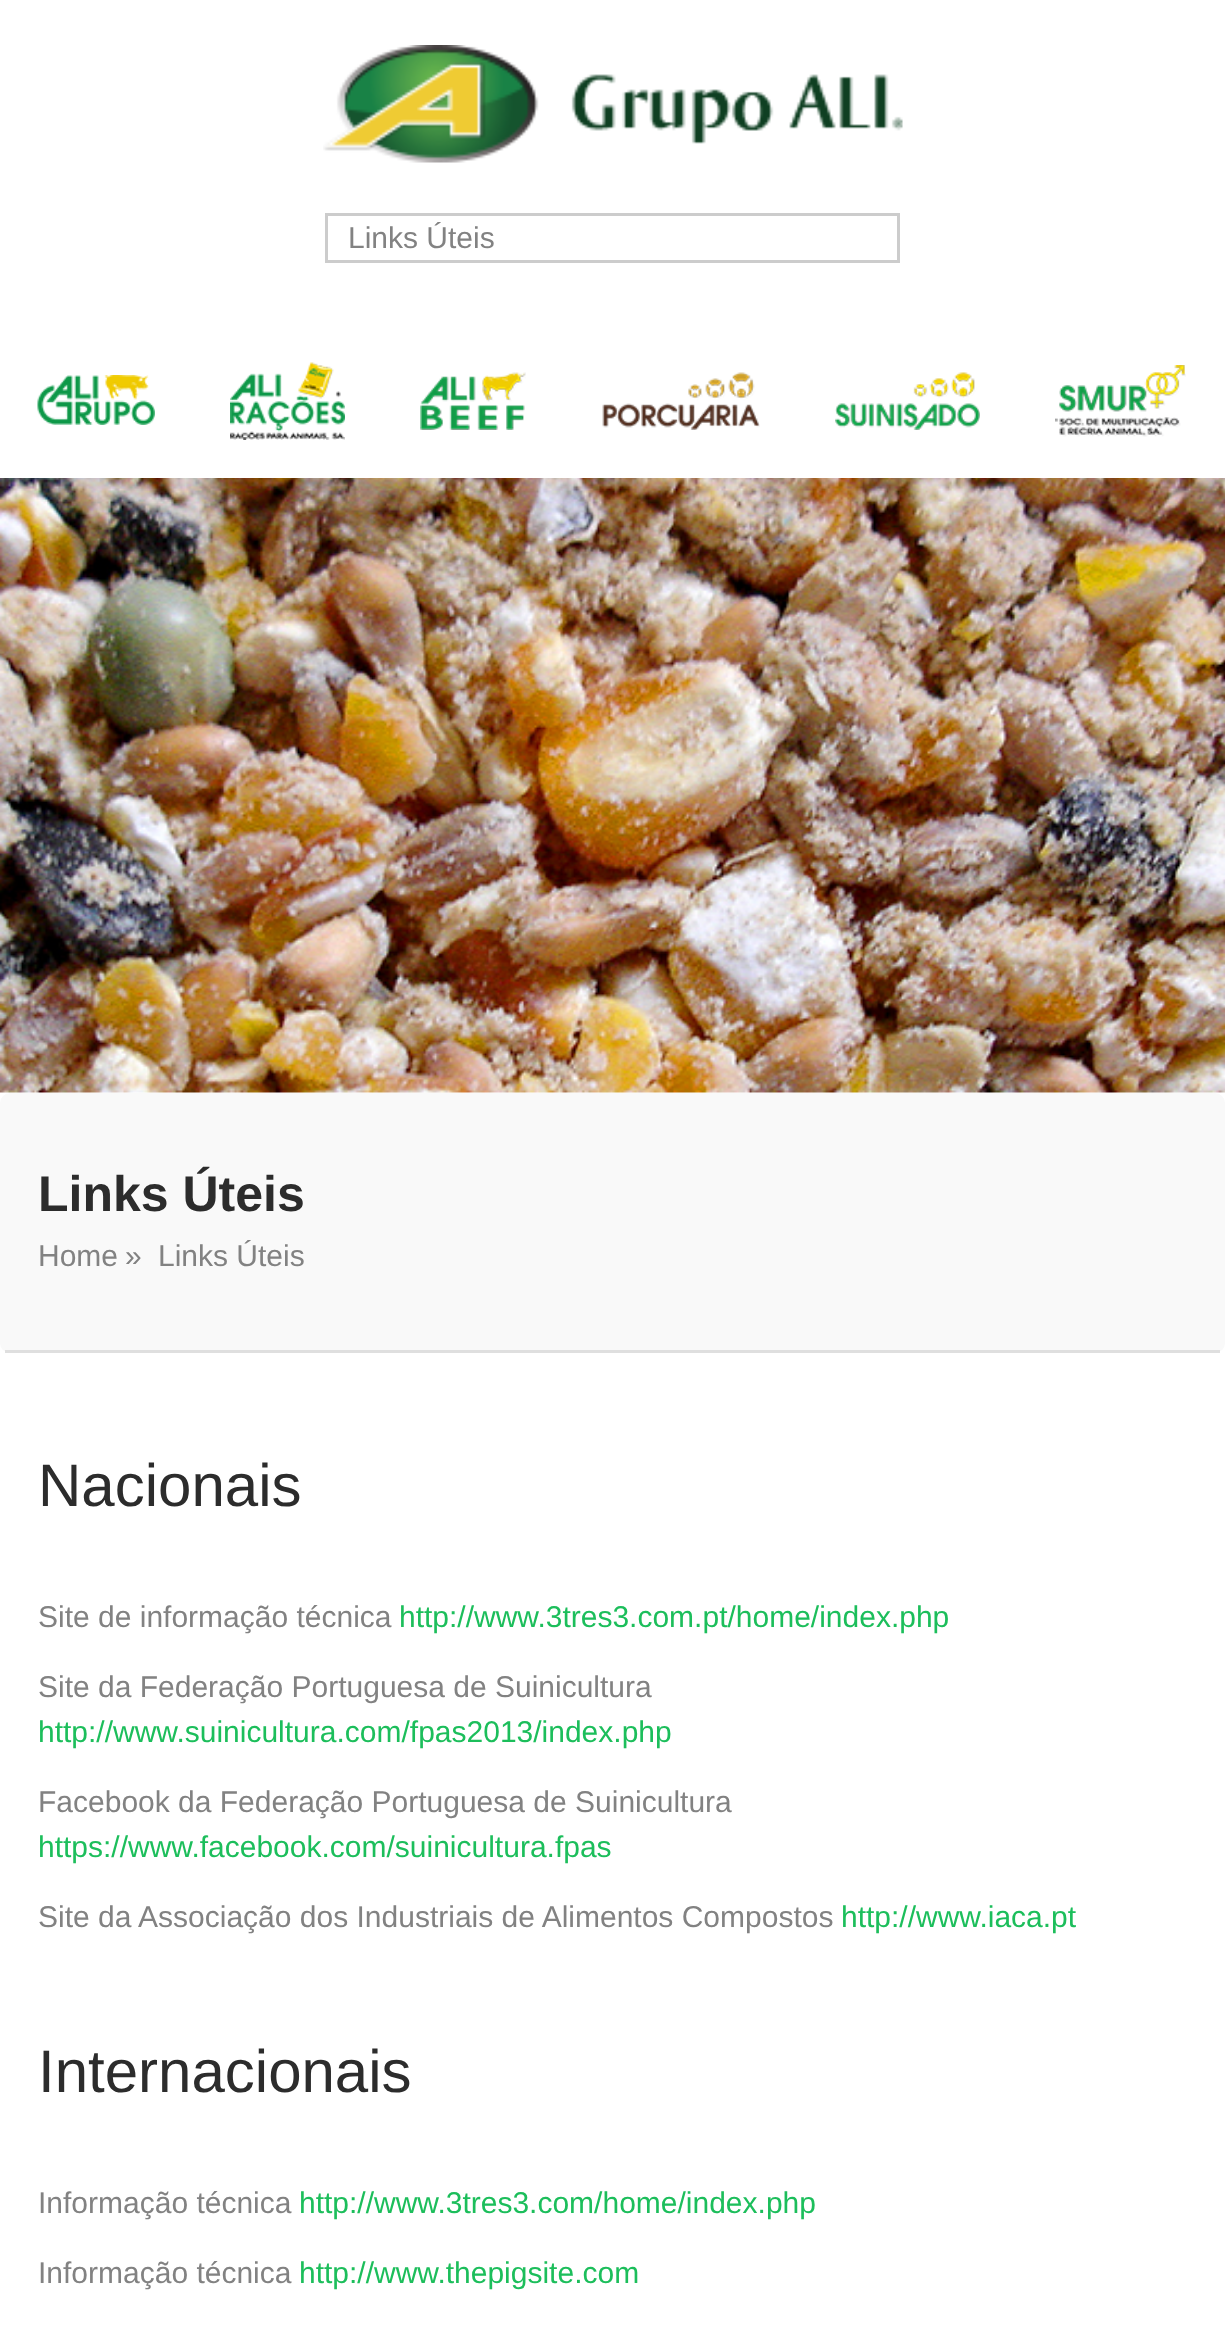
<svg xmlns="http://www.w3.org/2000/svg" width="1225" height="2344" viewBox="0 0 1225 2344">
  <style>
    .t1 { font: 30px Liberation Sans; fill: #828282; }
    .t2 { font: bold 50px Liberation Sans; fill: #2c2c2c; }
    .t3 { font: 60px Liberation Sans; fill: #2c2c2c; }
    .t4 { font: 30px Liberation Sans; fill: #1cbe5b; }
  </style>
  <rect width="100%" height="100%" fill="#fff"/>
  <image x="323" y="45" width="580" height="118" href="images/1.png"/>
  <rect x="326.5" y="214.5" width="572" height="47" fill="none" stroke="#ccc" stroke-width="3"/>
  <text x="348" y="248" class="t1">Links Úteis</text>
  <image x="37" y="375" width="118" height="50" href="images/2.png"/>
  <image x="230" y="362" width="115" height="78" href="images/3.png"/>
  <image x="420" y="372" width="106" height="58" href="images/4.png"/>
  <image x="602" y="372" width="158" height="58" href="images/5.png"/>
  <image x="835" y="372" width="145" height="58" href="images/6.png"/>
  <image x="1055" y="365" width="131" height="72" href="images/7.png"/>
  <image x="0" y="478" width="1225" height="615" href="images/8.png"/>
  <rect x="0" y="1093" width="1225" height="260" rx="10" fill="#f9f9f9"/>
  <rect x="5" y="1350" width="1215" height="3" fill="#dfdfdf"/>
  <text x="38" y="1211" class="t2">Links Úteis</text>
  <text x="38" y="1266" class="t1">Home</text>
  <text x="125" y="1266" class="t1">»</text>
  <text x="158" y="1266" class="t1">Links Úteis</text>
  <text x="38" y="1506" class="t3">Nacionais</text>
  <text x="38" y="1627" class="t1">Site de informação técnica</text>
  <text x="399" y="1627" class="t4">http://www.3tres3.com.pt/home/index.php</text>
  <text x="38" y="1697" class="t1">Site da Federação Portuguesa de Suinicultura</text>
  <text x="38" y="1742" class="t4">http://www.suinicultura.com/fpas2013/index.php</text>
  <text x="38" y="1812" class="t1">Facebook da Federação Portuguesa de Suinicultura</text>
  <text x="38" y="1857" class="t4">https://www.facebook.com/suinicultura.fpas</text>
  <text x="38" y="1927" class="t1">Site da Associação dos Industriais de Alimentos Compostos</text>
  <text x="841" y="1927" class="t4">http://www.iaca.pt</text>
  <text x="38" y="2092" class="t3">Internacionais</text>
  <text x="38" y="2213" class="t1">Informação técnica</text>
  <text x="299" y="2213" class="t4">http://www.3tres3.com/home/index.php</text>
  <text x="38" y="2283" class="t1">Informação técnica</text>
  <text x="299" y="2283" class="t4">http://www.thepigsite.com</text>
</svg>
